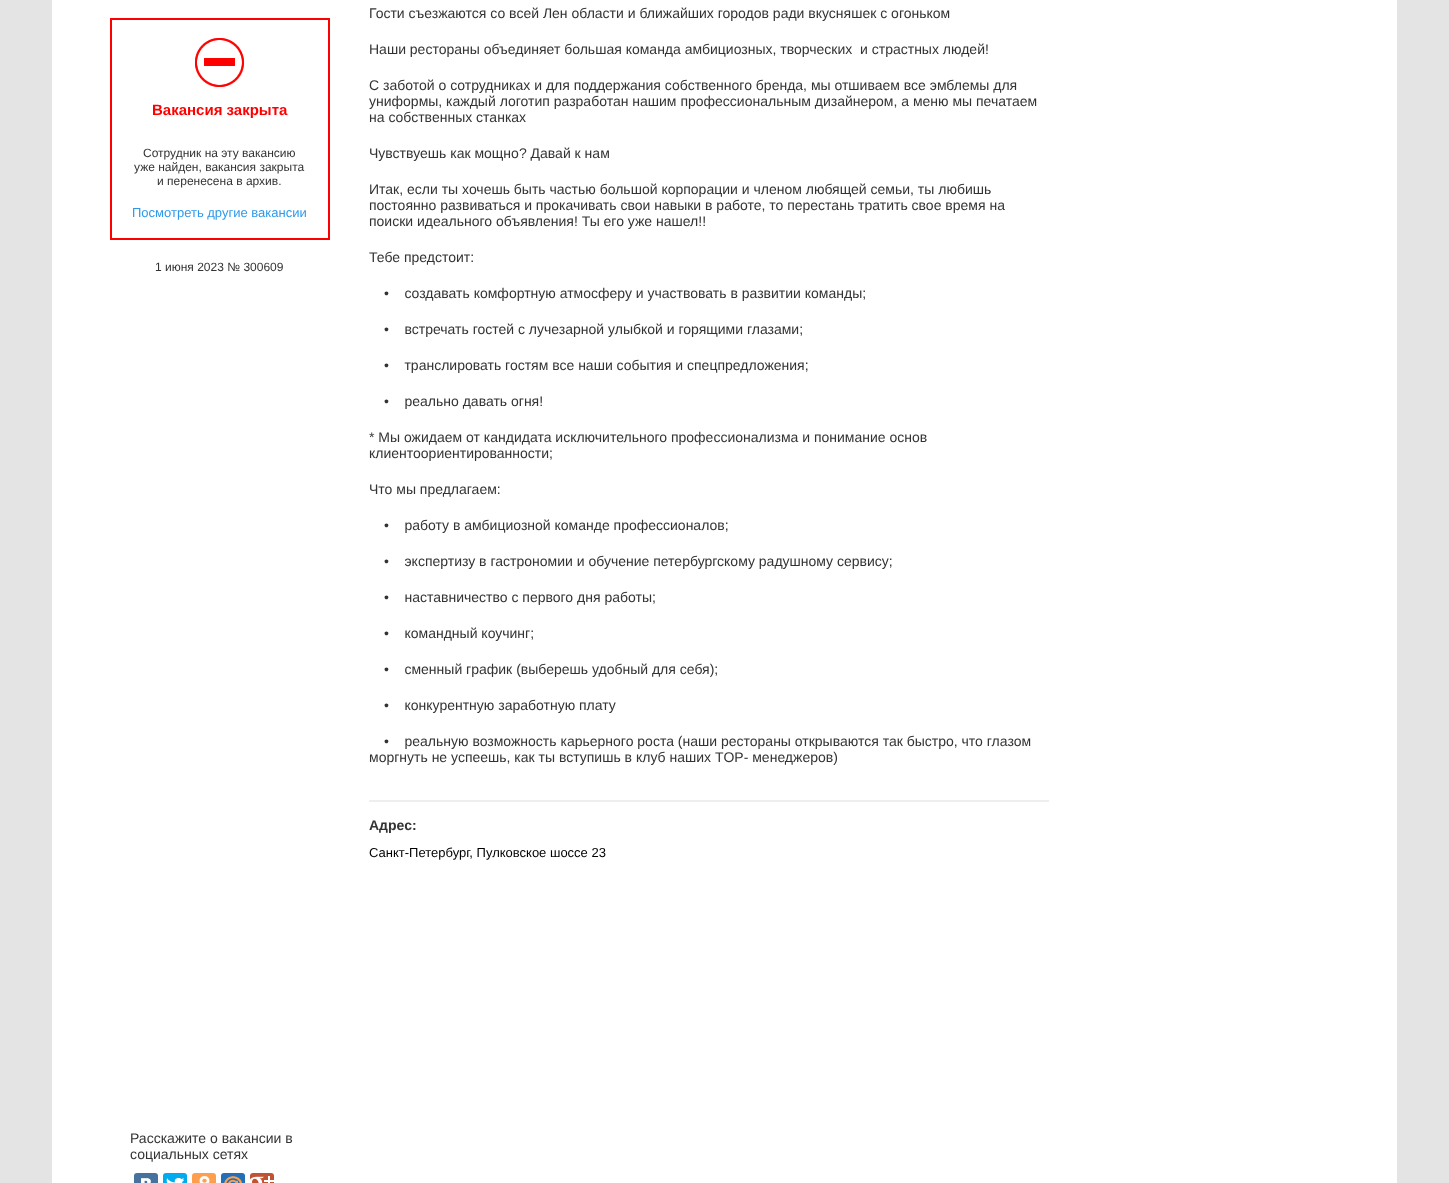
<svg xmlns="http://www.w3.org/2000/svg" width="1449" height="1183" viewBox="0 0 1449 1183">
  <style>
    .t1 { font: bold 15px Liberation Sans; fill: #f00; }
    .t2 { font: 12px Liberation Sans; fill: #333; }
    .t3 { font: 13px Liberation Sans; fill: #2e99eb; }
    .t4 { font: 14px Liberation Sans; fill: #333; }
    .t5 { font: bold 14px Liberation Sans; fill: #333; }
    .t6 { font: 13px Liberation Sans; fill: #000; }
  </style>
  <rect width="100%" height="100%" fill="#e4e4e4"/>
  <rect x="52" y="0" width="1345" height="1183" fill="#fff"/>
  <image x="195" y="38" width="49" height="49" href="images/1.png"/>
  <rect x="111" y="19" width="218" height="220" fill="none" stroke="#f00" stroke-width="2"/>
  <text x="152" y="115" class="t1">Вакансия закрыта</text>
  <text x="143" y="157" class="t2">Сотрудник на эту вакансию</text>
  <text x="134" y="171" class="t2">уже найден, вакансия закрыта</text>
  <text x="157" y="185" class="t2">и перенесена в архив.</text>
  <text x="132" y="217" class="t3">Посмотреть другие вакансии</text>
  <text x="155" y="271" class="t2">1 июня 2023 № 300609</text>
  <rect x="369" y="800" width="680" height="2" fill="#eee"/>
  <text x="369" y="18" class="t4">Гости съезжаются со всей Лен области и ближайших городов ради вкусняшек с огоньком</text>
  <text x="369" y="54" class="t4" xml:space="preserve">Наши рестораны объединяет большая команда амбициозных, творческих  и страстных людей!</text>
  <text x="369" y="90" class="t4">С заботой о сотрудниках и для поддержания собственного бренда, мы отшиваем все эмблемы для</text>
  <text x="369" y="106" class="t4">униформы, каждый логотип разработан нашим профессиональным дизайнером, а меню мы печатаем</text>
  <text x="369" y="122" class="t4">на собственных станках</text>
  <text x="369" y="158" class="t4">Чувствуешь как мощно? Давай к нам</text>
  <text x="369" y="194" class="t4">Итак, если ты хочешь быть частью большой корпорации и членом любящей семьи, ты любишь</text>
  <text x="369" y="210" class="t4">постоянно развиваться и прокачивать свои навыки в работе, то перестань тратить свое время на</text>
  <text x="369" y="226" class="t4">поиски идеального объявления! Ты его уже нашел!!</text>
  <text x="369" y="262" class="t4">Тебе предстоит:</text>
  <text x="384" y="298" class="t4" xml:space="preserve">•    создавать комфортную атмосферу и участвовать в развитии команды;</text>
  <text x="384" y="334" class="t4" xml:space="preserve">•    встречать гостей с лучезарной улыбкой и горящими глазами;</text>
  <text x="384" y="370" class="t4" xml:space="preserve">•    транслировать гостям все наши события и спецпредложения;</text>
  <text x="384" y="406" class="t4" xml:space="preserve">•    реально давать огня!</text>
  <text x="369" y="442" class="t4">* Мы ожидаем от кандидата исключительного профессионализма и понимание основ</text>
  <text x="369" y="458" class="t4">клиентоориентированности;</text>
  <text x="369" y="494" class="t4">Что мы предлагаем:</text>
  <text x="384" y="530" class="t4" xml:space="preserve">•    работу в амбициозной команде профессионалов;</text>
  <text x="384" y="566" class="t4" xml:space="preserve">•    экспертизу в гастрономии и обучение петербургскому радушному сервису;</text>
  <text x="384" y="602" class="t4" xml:space="preserve">•    наставничество с первого дня работы;</text>
  <text x="384" y="638" class="t4" xml:space="preserve">•    командный коучинг;</text>
  <text x="384" y="674" class="t4" xml:space="preserve">•    сменный график (выберешь удобный для себя);</text>
  <text x="384" y="710" class="t4" xml:space="preserve">•    конкурентную заработную плату</text>
  <text x="384" y="746" class="t4" xml:space="preserve">•    реальную возможность карьерного роста (наши рестораны открываются так быстро, что глазом</text>
  <text x="369" y="762" class="t4">моргнуть не успеешь, как ты вступишь в клуб наших ТOP- менеджеров)</text>
  <text x="369" y="830" class="t5">Адрес:</text>
  <text x="369" y="857" class="t6">Санкт-Петербург, Пулковское шоссе 23</text>
  <text x="130" y="1143" class="t4">Расскажите о вакансии в</text>
  <text x="130" y="1159" class="t4">социальных сетях</text>
  <rect x="134" y="1173" width="24" height="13" rx="3" fill="#48729e"/>
  <image x="141" y="1178" width="10" height="5" href="images/2.png"/>
  <rect x="163" y="1173" width="24" height="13" rx="3" fill="#00aced"/>
  <image x="166" y="1178" width="18" height="5" href="images/3.png"/>
  <rect x="192" y="1173" width="24" height="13" rx="3" fill="#ff9f4d"/>
  <image x="199" y="1176" width="11" height="7" href="images/4.png"/>
  <rect x="221" y="1173" width="24" height="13" rx="3" fill="#226eb7"/>
  <image x="224" y="1176" width="18" height="7" href="images/5.png"/>
  <rect x="250" y="1173" width="24" height="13" rx="3" fill="#c25234"/>
  <image x="250" y="1176" width="24" height="7" href="images/6.png"/>
</svg>
